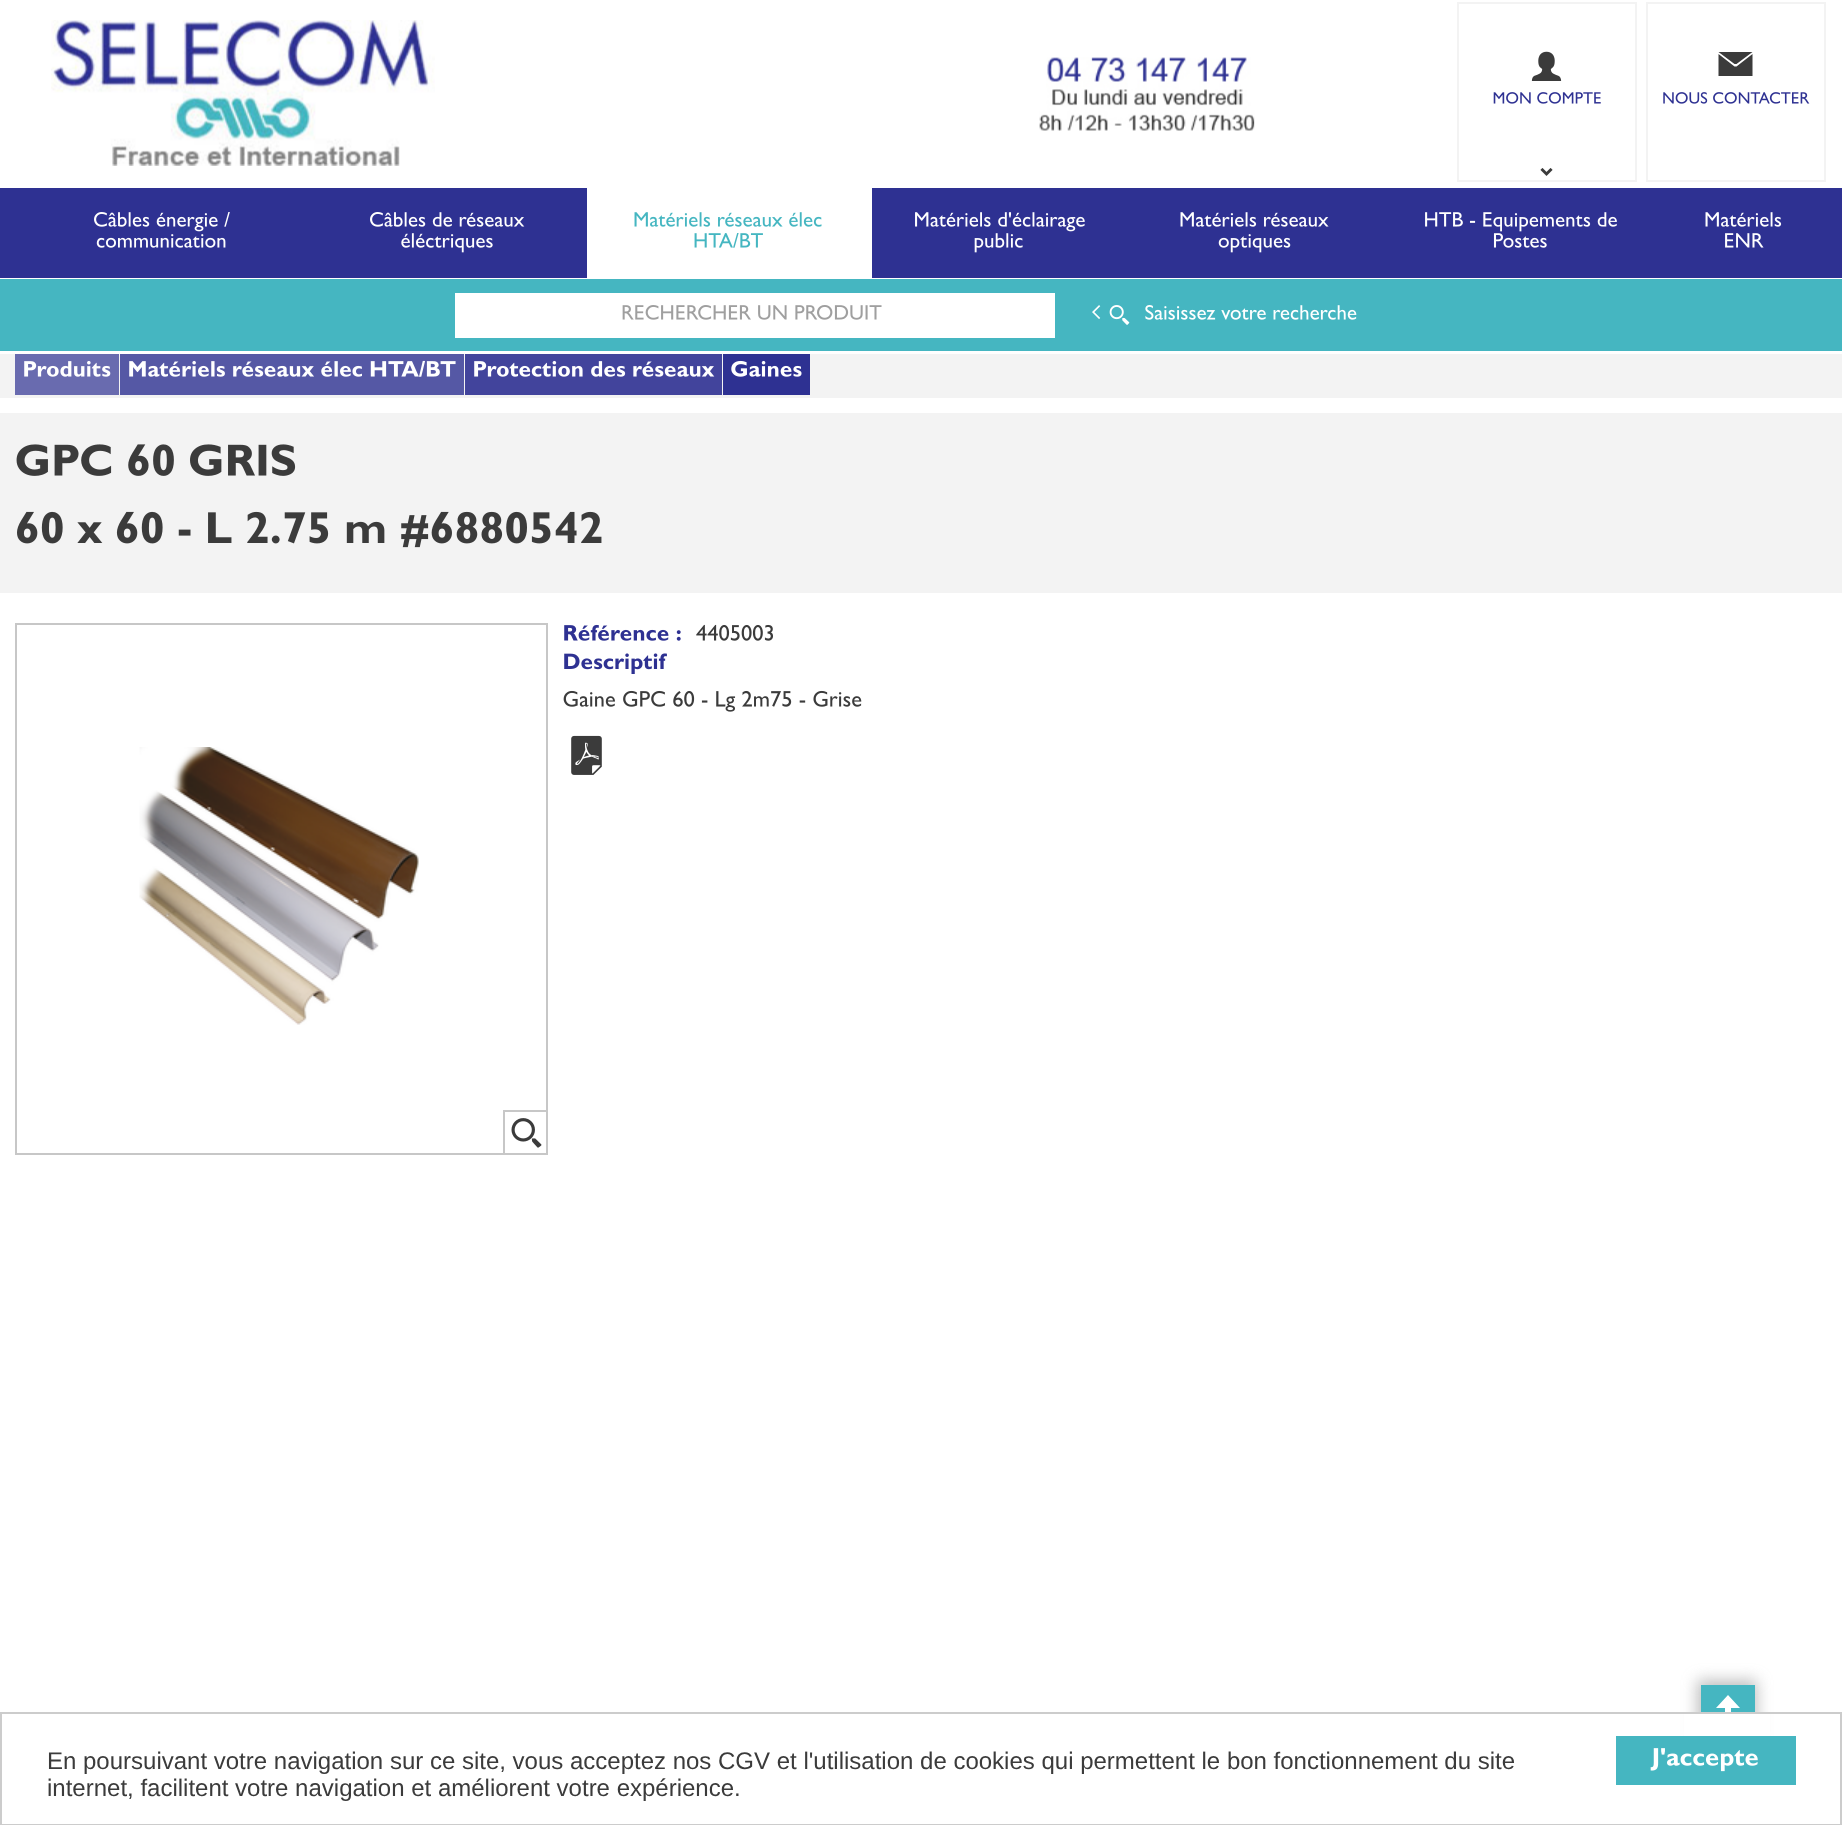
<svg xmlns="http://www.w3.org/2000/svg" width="1842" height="1825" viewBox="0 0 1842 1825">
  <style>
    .t1 { font: 24px Liberation Sans; fill: #3b3b3b; }
  </style>
  <rect width="100%" height="100%" fill="#fff"/>
  <image x="51" y="20" width="384" height="146" href="images/1.png"/>
  <image x="1039" y="57" width="216" height="74" href="images/2.png"/>
  <rect x="1458" y="3" width="178" height="178" fill="none" stroke="#f3f3f3" stroke-width="2"/>
  <image x="1531" y="51" width="31" height="30" href="images/3.png"/>
  <image x="1493" y="92" width="108" height="12" href="images/4.png"/>
  <image x="1540" y="168" width="13" height="8" href="images/5.png"/>
  <rect x="1647" y="3" width="178" height="178" fill="none" stroke="#f3f3f3" stroke-width="2"/>
  <path d="M1734.5 64L1718.5 52H1752.5L1736.5 64ZM1718.5 76V54L1734.5 66.5H1736.5L1752.5 54V76Z" fill="#3b3b3b"/>
  <image x="1663" y="92" width="147" height="12" href="images/6.png"/>
  <rect x="0" y="188" width="1842" height="90" fill="#2e3192"/>
  <image x="94" y="212" width="136" height="20" href="images/7.png"/>
  <image x="96" y="234" width="130" height="14" href="images/8.png"/>
  <image x="370" y="212" width="155" height="15" href="images/9.png"/>
  <image x="401" y="233" width="92" height="20" href="images/10.png"/>
  <rect x="587" y="188" width="285" height="90" fill="#fff"/>
  <image x="634" y="212" width="188" height="15" href="images/11.png"/>
  <image x="694" y="233" width="69" height="15" href="images/12.png"/>
  <image x="915" y="212" width="170" height="20" href="images/13.png"/>
  <image x="974" y="233" width="49" height="20" href="images/14.png"/>
  <image x="1180" y="212" width="149" height="15" href="images/15.png"/>
  <image x="1218" y="234" width="73" height="19" href="images/16.png"/>
  <image x="1425" y="212" width="192" height="20" href="images/17.png"/>
  <image x="1493" y="233" width="54" height="15" href="images/18.png"/>
  <image x="1705" y="212" width="77" height="15" href="images/19.png"/>
  <image x="1725" y="233" width="39" height="15" href="images/20.png"/>
  <rect x="0" y="279" width="1842" height="72" fill="#45b6c1"/>
  <rect x="455" y="293" width="600" height="45" fill="#fff"/>
  <image x="622" y="305" width="260" height="15" href="images/21.png"/>
  <image x="1092" y="305" width="38" height="20" href="images/22.png"/>
  <image x="1145" y="305" width="212" height="15" href="images/23.png"/>
  <rect x="0" y="354" width="1842" height="44" fill="#f3f3f3"/>
  <rect x="15" y="354" width="104" height="41" fill="#696baf"/>
  <image x="24" y="361" width="87" height="16" href="images/24.png"/>
  <rect x="120" y="354" width="344" height="41" fill="#5558a5"/>
  <image x="129" y="360" width="327" height="17" href="images/25.png"/>
  <rect x="465" y="354" width="257" height="41" fill="#42449c"/>
  <image x="474" y="360" width="241" height="17" href="images/26.png"/>
  <rect x="723" y="354" width="87" height="41" fill="#2e3192"/>
  <image x="731" y="360" width="71" height="17" href="images/27.png"/>
  <rect x="0" y="413" width="1842" height="180" fill="#f3f3f3"/>
  <image x="16" y="444" width="280" height="32" href="images/28.png"/>
  <image x="17" y="511" width="585" height="37" href="images/29.png"/>
  <rect x="16" y="624" width="531" height="530" fill="none" stroke="#c7c7c7" stroke-width="2"/>
  <image x="139" y="747" width="280" height="278" href="images/30.png"/>
  <rect x="503" y="1110" width="45" height="2" fill="#c7c7c7"/>
  <rect x="503" y="1110" width="2" height="45" fill="#c7c7c7"/>
  <image x="511" y="1118" width="31" height="30" href="images/31.png"/>
  <image x="564" y="624" width="117" height="17" href="images/32.png"/>
  <image x="696" y="624" width="77" height="17" href="images/33.png"/>
  <image x="564" y="653" width="103" height="21" href="images/34.png"/>
  <image x="563" y="690" width="299" height="22" href="images/35.png"/>
  <image x="571" y="735" width="31" height="40" href="images/36.png"/>
  <rect x="1697" y="1680" width="60" height="60" fill="#7f7f7f80" filter="blur(7.5px)"/>
  <rect x="1716" y="1695" width="24" height="17" fill="#fff"/>
  <path d="M1725 1708V1729H1731V1708H1740L1728 1695L1716 1708ZM1701 1685H1755V1739H1701Z" fill="#45b6c1"/>
  <rect x="1684" y="1714" width="86" height="39" fill="#fff"/>
  <rect x="1" y="1713" width="1840" height="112" fill="none" stroke="#ccc" stroke-width="2"/>
  <text x="47" y="1769" class="t1">En poursuivant votre navigation sur ce site, vous acceptez nos CGV et l'utilisation de cookies qui permettent le bon fonctionnement du site</text>
  <text x="47" y="1796" class="t1">internet, facilitent votre navigation et améliorent votre expérience.</text>
  <rect x="1616" y="1736" width="180" height="49" fill="#45b6c1"/>
  <image x="1650" y="1748" width="108" height="24" href="images/37.png"/>
</svg>
